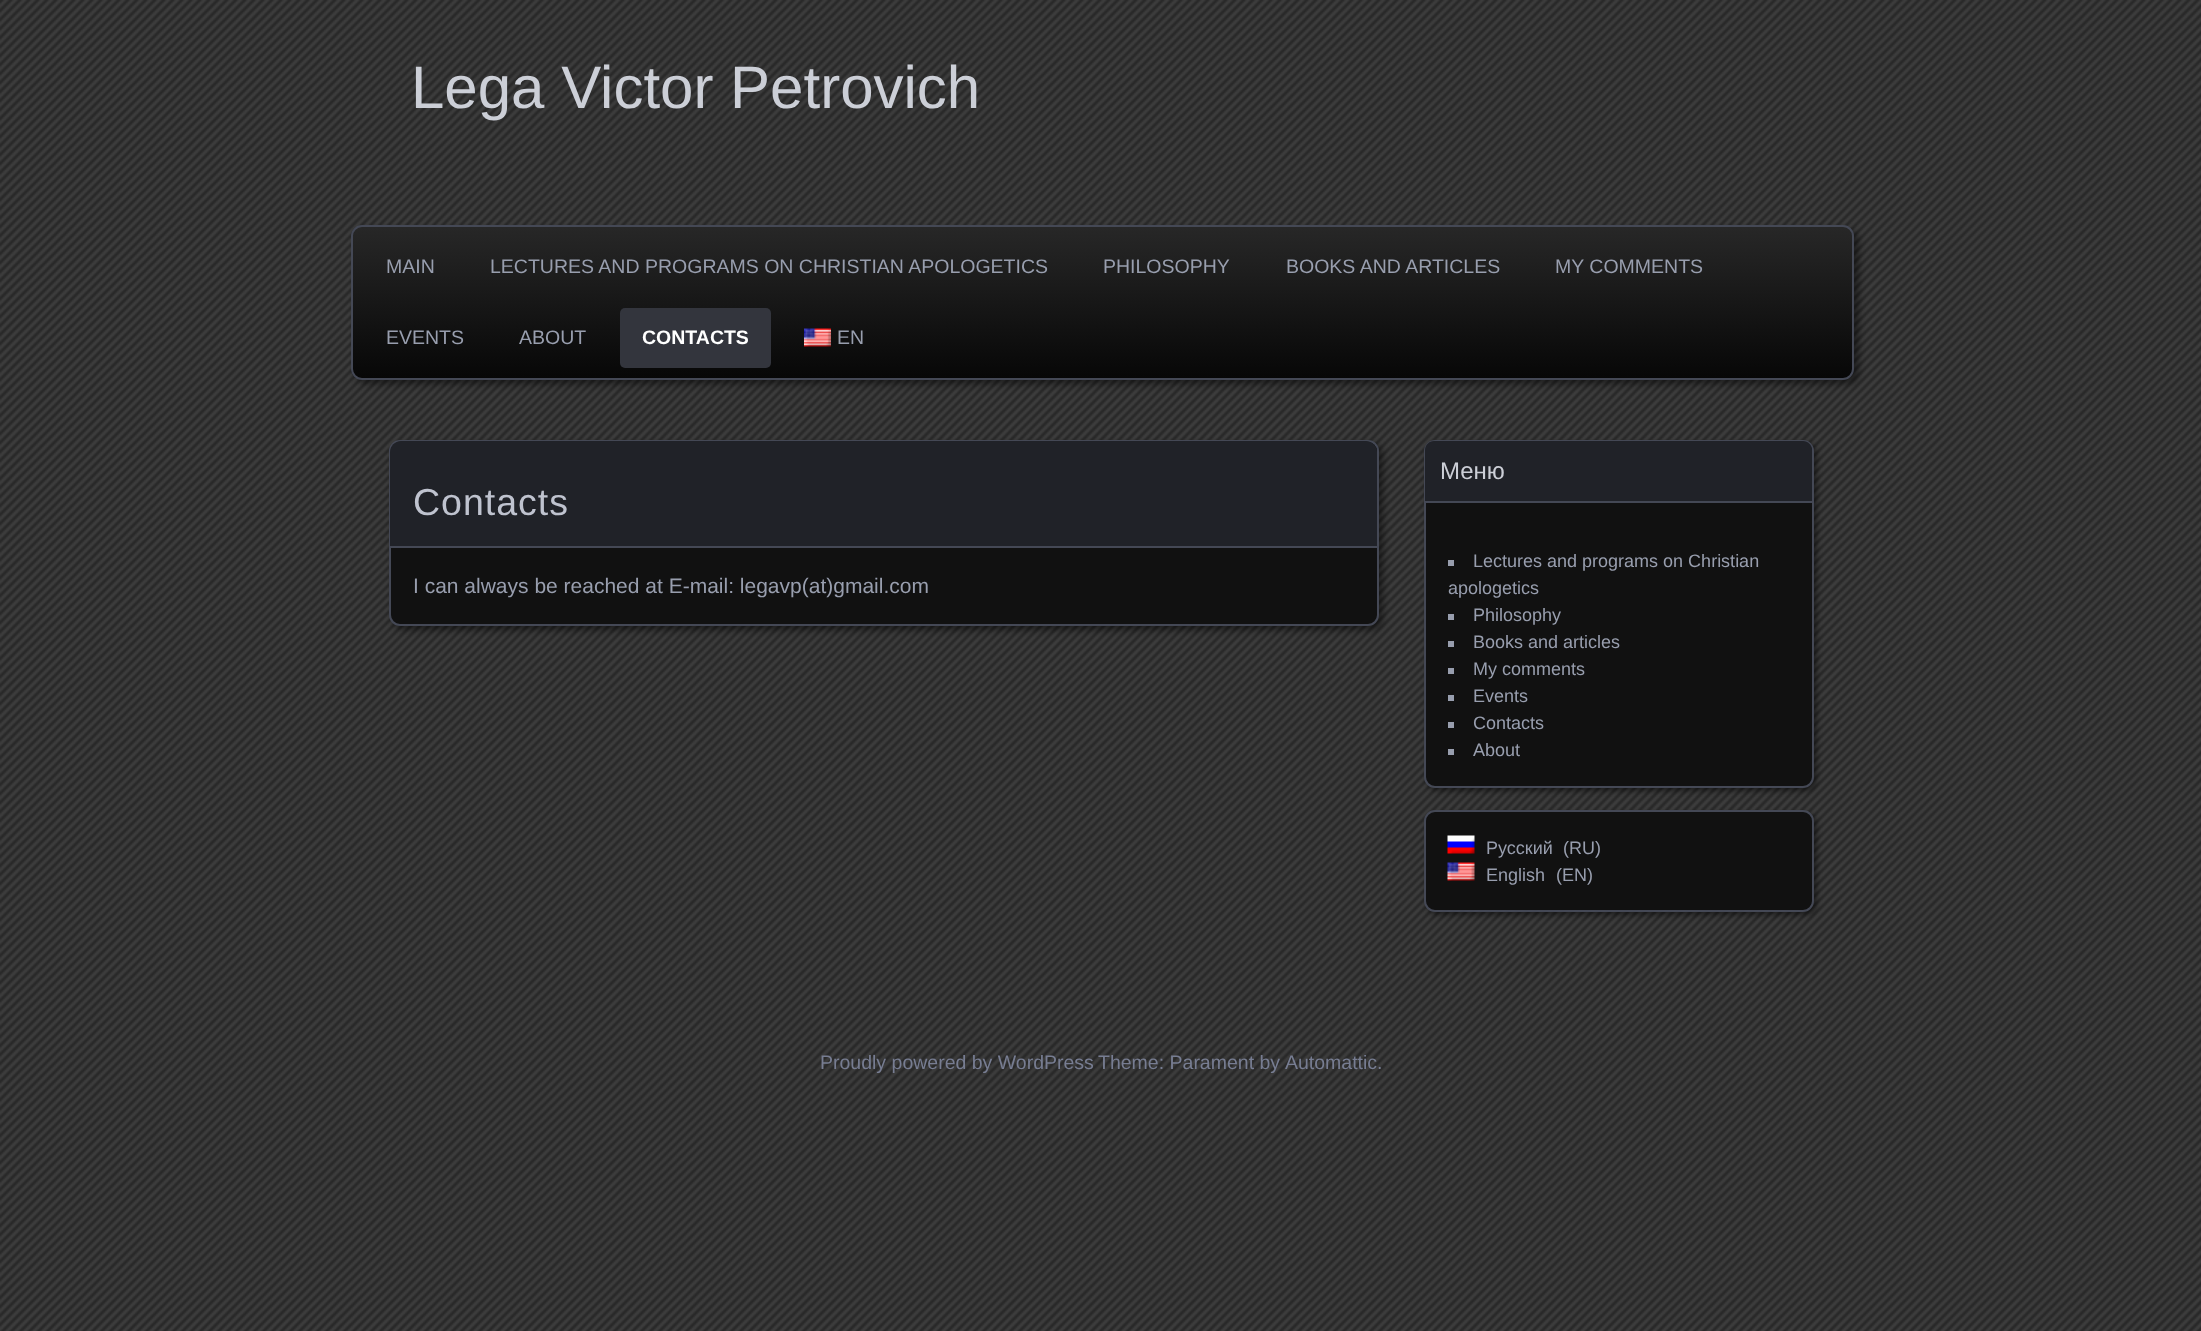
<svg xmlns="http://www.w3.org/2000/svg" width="2201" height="1331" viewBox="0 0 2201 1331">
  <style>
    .t1 { font: 60px Liberation Sans; fill: #cccfd7; }
    .t2 { font: 19.5px Liberation Sans; fill: #989eae; }
    .t3 { font: bold 19.5px Liberation Sans; fill: #fff; }
    .t4 { font: 37.5px Liberation Sans; letter-spacing: 1px; fill: #bfc3cf; }
    .t5 { font: 21px Liberation Sans; fill: #989eae; }
    .t6 { font: 24px Liberation Sans; fill: #cccfd7; }
    .t7 { font: 18px Liberation Sans; fill: #989eae; }
    .t8 { font: 19.5px Liberation Sans; fill: #777d92; }
  </style>
  <defs>
    <clipPath id="clip1"><rect x="351" y="225" width="1503" height="155" rx="11"/></clipPath>
    <linearGradient id="g1" gradientUnits="userSpaceOnUse" x1="1103" y1="226" x2="1103" y2="378"><stop offset="0.01" stop-color="#272727"/><stop offset="1" stop-color="#070707"/></linearGradient>
  </defs>
  <rect width="100%" height="100%" fill="#282828"/>
  <image x="0" y="0" width="2201" height="1331" href="images/1.png"/>
  <text x="411" y="108" class="t1">Lega Viсtor Petrovich</text>
  <rect x="356" y="230" width="1503" height="154" rx="11" fill="#00000073" filter="blur(3px)"/>
  <g clip-path="url(#clip1)">
    <rect x="351" y="227" width="1503" height="151" fill="url(#g1)"/>
  </g>
  <rect x="352" y="226" width="1501" height="153" rx="10" fill="none" stroke="#444855" stroke-width="2"/>
  <text x="386" y="273" class="t2">MAIN</text>
  <text x="490" y="273" class="t2">LECTURES AND PROGRAMS ON CHRISTIAN APOLOGETICS</text>
  <text x="1103" y="273" class="t2">PHILOSOPHY</text>
  <text x="1286" y="273" class="t2">BOOKS AND ARTICLES</text>
  <text x="1555" y="273" class="t2">MY COMMENTS</text>
  <text x="386" y="344" class="t2">EVENTS</text>
  <text x="519" y="344" class="t2">ABOUT</text>
  <rect x="620" y="308" width="151" height="60" rx="5" fill="#33353d"/>
  <text x="642" y="344" class="t3">CONTACTS</text>
  <image x="804" y="328" width="27" height="19" href="images/2.png"/>
  <text x="837" y="344" class="t2">EN</text>
  <rect x="393" y="444" width="990" height="186" rx="11" fill="#00000073" filter="blur(3px)"/>
  <rect x="390" y="441" width="988" height="184" rx="10" fill="#111" stroke="#444855" stroke-width="2"/>
  <path d="M401 441H1366C1372 441 1377 446 1377 452V548H390V452C390 446 395 441 401 441Z" fill="#202228"/>
  <rect x="390" y="546" width="987" height="2" fill="#444855"/>
  <text x="413" y="515" class="t4">Contacts</text>
  <text x="413" y="593" class="t5">I can always be reached at E-mail: legavp(at)gmail.com</text>
  <rect x="1427" y="443" width="390" height="348" rx="11" fill="#00000073" filter="blur(2.5px)"/>
  <rect x="1425" y="441" width="388" height="346" rx="10" fill="#111" stroke="#444855" stroke-width="2"/>
  <path d="M1434 441H1803C1808 441 1812 445 1812 450V503H1425V450C1425 445 1429 441 1434 441Z" fill="#202228"/>
  <rect x="1425" y="501" width="387" height="2" fill="#444855"/>
  <text x="1440" y="479" class="t6">Меню</text>
  <rect x="1448" y="560" width="6" height="6" fill="#989eae"/>
  <text x="1473" y="567" class="t7">Lectures and programs on Christian</text>
  <text x="1448" y="594" class="t7">apologetics</text>
  <rect x="1448" y="614" width="6" height="6" fill="#989eae"/>
  <text x="1473" y="621" class="t7">Philosophy</text>
  <rect x="1448" y="641" width="6" height="6" fill="#989eae"/>
  <text x="1473" y="648" class="t7">Books and articles</text>
  <rect x="1448" y="668" width="6" height="6" fill="#989eae"/>
  <text x="1473" y="675" class="t7">My comments</text>
  <rect x="1448" y="695" width="6" height="6" fill="#989eae"/>
  <text x="1473" y="702" class="t7">Events</text>
  <rect x="1448" y="722" width="6" height="6" fill="#989eae"/>
  <text x="1473" y="729" class="t7">Contacts</text>
  <rect x="1448" y="749" width="6" height="6" fill="#989eae"/>
  <text x="1473" y="756" class="t7">About</text>
  <rect x="1427" y="813" width="390" height="102" rx="11" fill="#00000073" filter="blur(2.5px)"/>
  <rect x="1425" y="811" width="388" height="100" rx="10" fill="#111" stroke="#444855" stroke-width="2"/>
  <image x="1447" y="835" width="28" height="19" href="images/3.png"/>
  <text x="1486" y="854" class="t7">Русский</text>
  <text x="1563" y="854" class="t7">(RU)</text>
  <image x="1447" y="862" width="28" height="19" href="images/4.png"/>
  <text x="1486" y="881" class="t7">English</text>
  <text x="1556" y="881" class="t7">(EN)</text>
  <text x="820" y="1069" class="t8">Proudly powered by WordPress</text>
  <text x="1098" y="1069" class="t8">Theme: Parament by</text>
  <text x="1285" y="1069" class="t8">Automattic.</text>
</svg>
